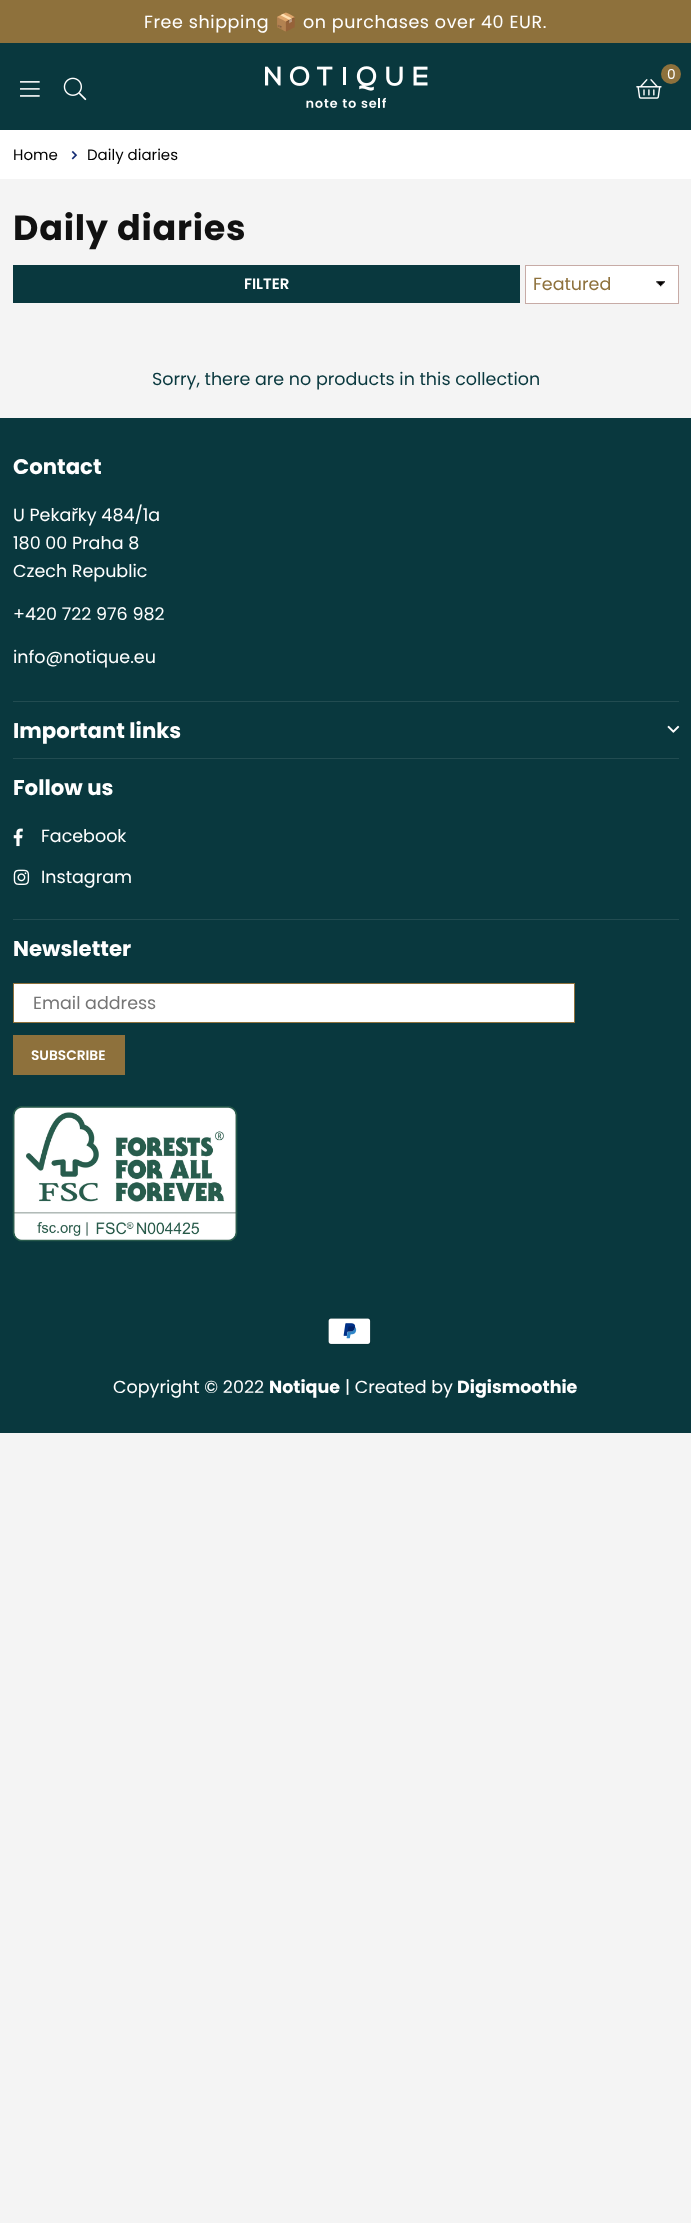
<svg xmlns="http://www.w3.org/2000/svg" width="691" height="2223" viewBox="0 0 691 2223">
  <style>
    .t1 { font: 17.5px Poppins; letter-spacing: 0.6px; fill: #fff; }
    .t2 { font: 17.5px Noto Color Emoji; letter-spacing: 0.6px; fill: #fff; }
    .t3 { font: 13.75px Poppins; fill: #fff; }
    .t4 { font: 15px Poppins; fill: #000; }
    .t5 { font: bold 35px Poppins; letter-spacing: 0.75px; fill: #111; }
    .t6 { font: 600 15px Poppins; fill: #fff; }
    .t7 { font: 17.5px Poppins; fill: #8e713c; }
    .t8 { font: 17.5px Poppins; fill: #09383e; }
    .t9 { font: bold 21.25px Poppins; fill: #fff; }
    .t10 { font: 17.5px Poppins; fill: #fff; }
    .t11 { font: 17.5px Poppins; fill: #757575; }
    .t12 { font: 600 13.75px Poppins; fill: #fff; }
    .t13 { font: bold 17.5px Poppins; fill: #fff; }
  </style>
  <rect width="100%" height="100%" fill="#f4f4f4"/>
  <rect x="0" y="0" width="691" height="43" fill="#8e713c"/>
  <text x="144" y="28" class="t1">Free shipping</text>
  <text x="275" y="28" class="t2">📦</text>
  <text x="303" y="28" class="t1">on purchases over 40 EUR.</text>
  <rect x="0" y="43" width="691" height="87" fill="#09383e"/>
  <image x="265" y="66" width="163" height="42" href="images/1.png"/>
  <image x="636" y="79" width="26" height="20" href="images/2.png"/>
  <circle cx="671" cy="74" r="10" fill="#8e713c"/>
  <text x="667" y="79" class="t3">0</text>
  <image x="20" y="81" width="20" height="16" href="images/3.png"/>
  <image x="63" y="77" width="24" height="24" href="images/4.png"/>
  <rect x="0" y="130" width="691" height="49" fill="#fff"/>
  <text x="13" y="160" class="t4">Home</text>
  <image x="71" y="150" width="7" height="10" href="images/5.png"/>
  <text x="87" y="160" class="t4">Daily diaries</text>
  <text x="13" y="240" class="t5">Daily diaries</text>
  <rect x="13" y="265" width="507" height="38" fill="#09383e"/>
  <text x="244" y="289" class="t6">FILTER</text>
  <rect x="526" y="266" width="152" height="37" fill="#fff"/>
  <image x="656" y="281" width="9" height="6" href="images/6.png"/>
  <rect x="525.5" y="265.5" width="153" height="38" fill="none" stroke="#c7aba6"/>
  <text x="533" y="290" class="t7">Featured</text>
  <text x="152" y="385" class="t8">Sorry, there are no products in this collection</text>
  <rect x="0" y="418" width="691" height="1015" fill="#09383e"/>
  <text x="13" y="474" class="t9">Contact</text>
  <text x="13" y="521" class="t10">U Pekařky 484/1a</text>
  <text x="13" y="549" class="t10">180 00 Praha 8</text>
  <text x="13" y="577" class="t10">Czech Republic</text>
  <text x="13" y="620" class="t10">+420 722 976 982</text>
  <text x="13" y="663" class="t10">info@notique.eu</text>
  <rect x="13" y="701" width="666" height="1" fill="#224c51"/>
  <text x="13" y="738" class="t9">Important links</text>
  <image x="667" y="725" width="13" height="8" href="images/7.png"/>
  <rect x="13" y="758" width="666" height="1" fill="#224c51"/>
  <text x="13" y="795" class="t9">Follow us</text>
  <image x="13" y="828" width="10" height="19" href="images/8.png"/>
  <text x="41" y="842" class="t10">Facebook</text>
  <image x="13" y="869" width="17" height="16" href="images/9.png"/>
  <text x="41" y="883" class="t10">Instagram</text>
  <rect x="13" y="919" width="666" height="1" fill="#224c51"/>
  <text x="13" y="956" class="t9">Newsletter</text>
  <rect x="13.5" y="983.5" width="561" height="39" fill="#fff" stroke="#8e713c"/>
  <text x="33" y="1009" class="t11">Email address</text>
  <rect x="13" y="1035" width="112" height="40" fill="#8e713c"/>
  <text x="31" y="1060" class="t12">SUBSCRIBE</text>
  <image x="12" y="1106" width="226" height="136" href="images/10.png"/>
  <image x="328" y="1318" width="43" height="27" href="images/11.png"/>
  <text x="113" y="1393" class="t10">Copyright © 2022</text>
  <text x="269" y="1393" class="t13">Notique</text>
  <text x="345" y="1393" class="t10">| Created by</text>
  <text x="457" y="1393" class="t13">Digismoothie</text>
</svg>
